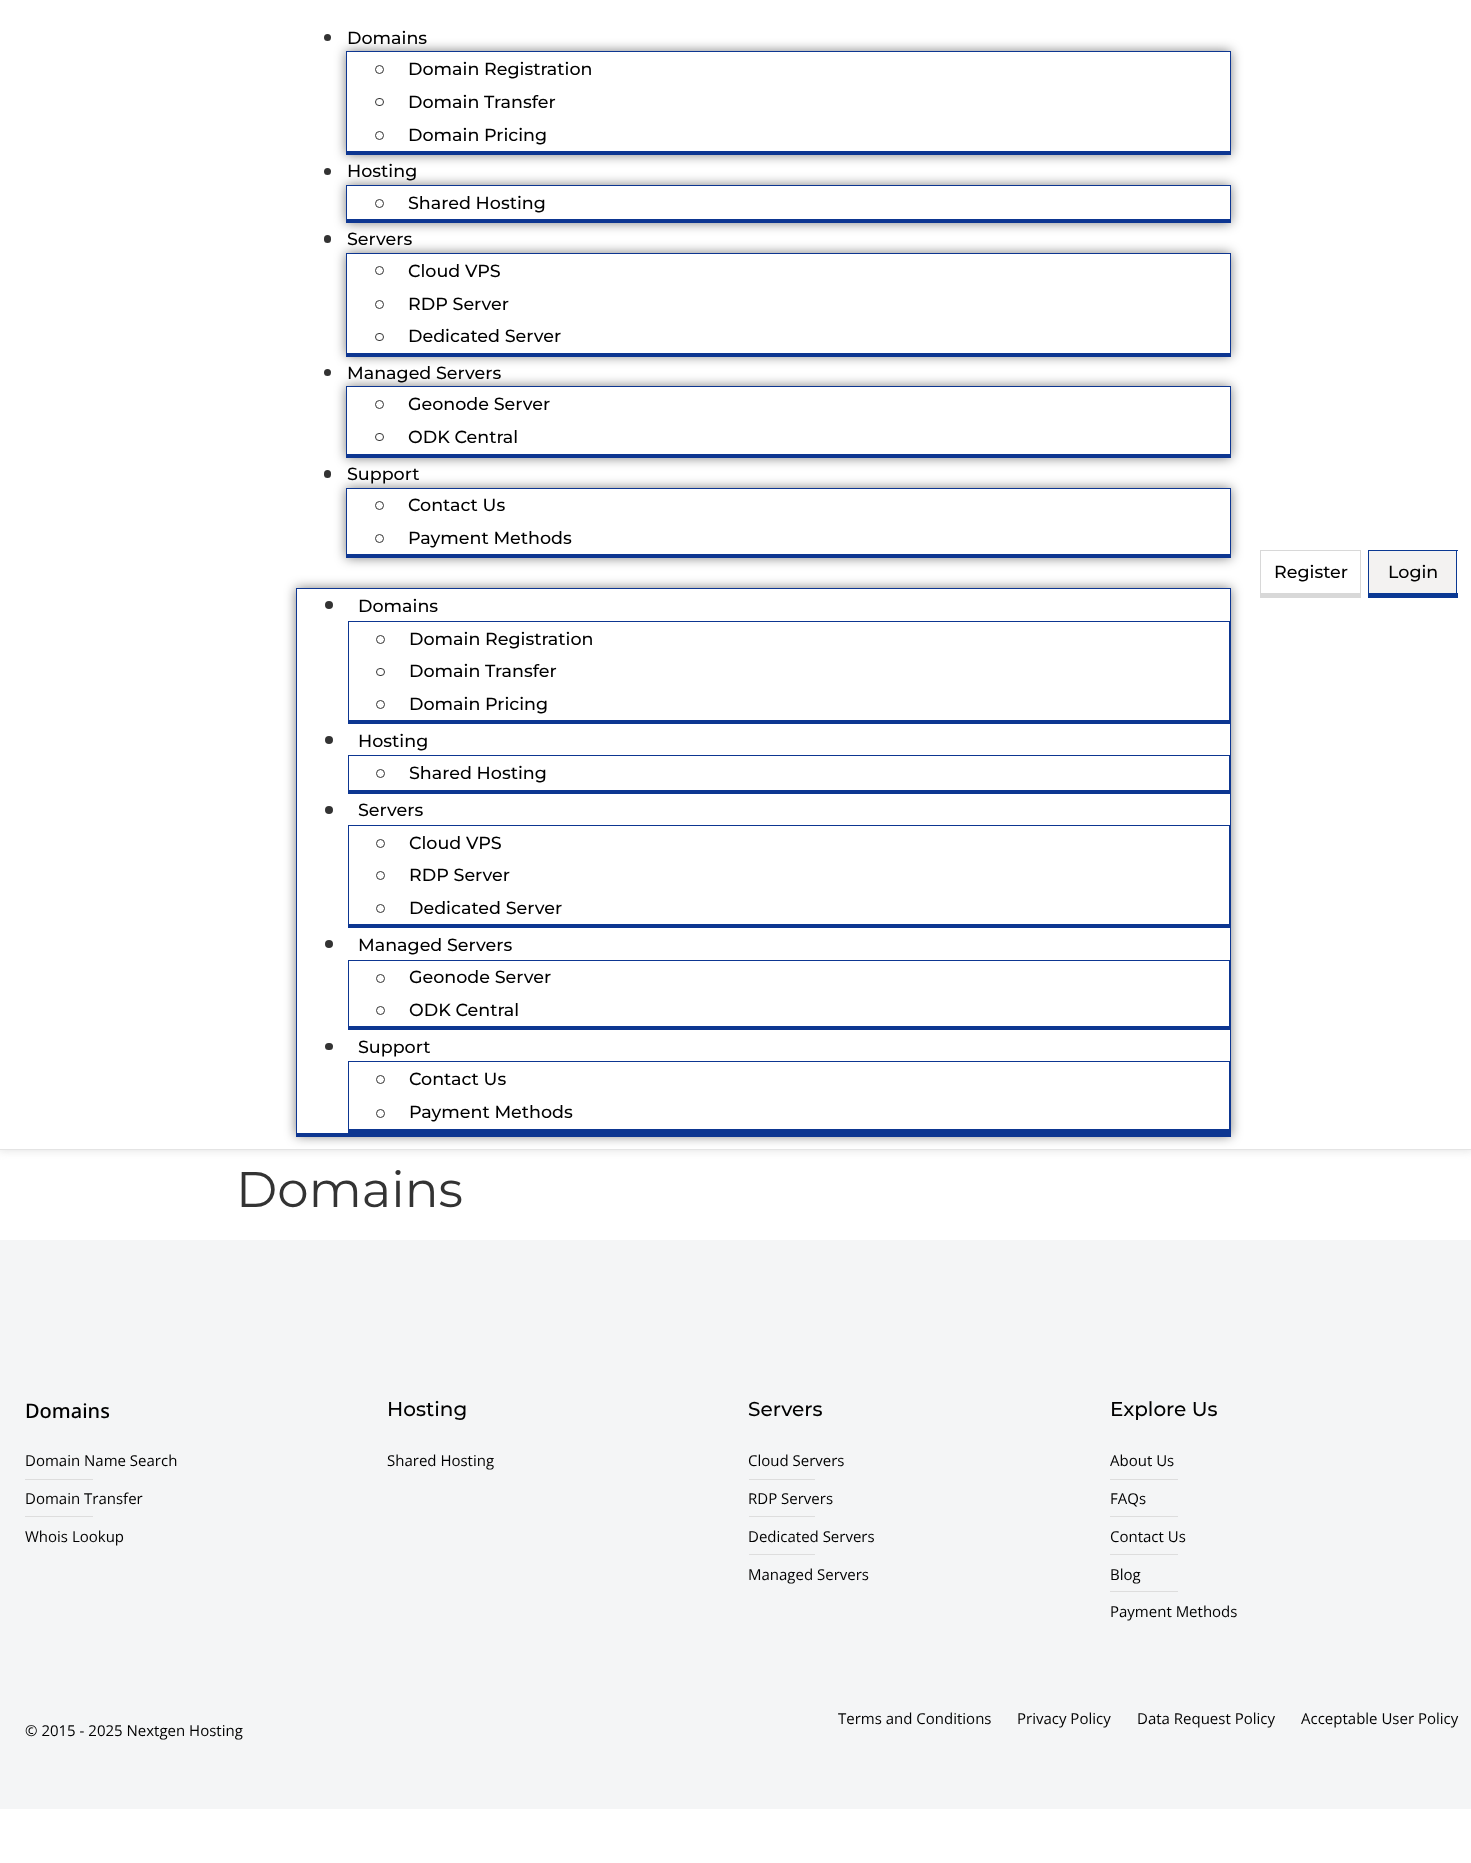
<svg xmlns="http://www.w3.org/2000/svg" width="1471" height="1863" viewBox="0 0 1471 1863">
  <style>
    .t1 { font: 500 17.5px Montserrat; fill: #000; }
    .t2 { font: 50px Montserrat; fill: #333; }
    .t3 { font: 500 20px Noto Sans; fill: #000; }
    .t4 { font: 15px Open Sans; fill: #000; }
    .t5 { font: 500 20px Montserrat; fill: #000; }
  </style>
  <defs>
    <clipPath id="clip1"><rect x="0" y="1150" width="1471" height="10"/></clipPath>
    <clipPath id="clip2"><path d="M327 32H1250V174H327ZM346 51H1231V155H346Z" clip-rule="evenodd"/></clipPath>
    <clipPath id="clip3"><path d="M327 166H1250V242H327ZM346 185H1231V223H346Z" clip-rule="evenodd"/></clipPath>
    <clipPath id="clip4"><path d="M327 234H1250V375H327ZM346 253H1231V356H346Z" clip-rule="evenodd"/></clipPath>
    <clipPath id="clip5"><path d="M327 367H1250V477H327ZM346 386H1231V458H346Z" clip-rule="evenodd"/></clipPath>
    <clipPath id="clip6"><path d="M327 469H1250V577H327ZM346 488H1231V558H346Z" clip-rule="evenodd"/></clipPath>
    <clipPath id="clip7"><path d="M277 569H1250V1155H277ZM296 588H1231V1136H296Z" clip-rule="evenodd"/></clipPath>
  </defs>
  <rect width="100%" height="100%" fill="#fff"/>
  <g clip-path="url(#clip1)">
    <rect x="-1" y="-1" width="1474" height="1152" fill="#e4e4e4" filter="blur(4.5px)"/>
  </g>
  <rect x="0" y="1149" width="1471" height="1" fill="#e4e4e4"/>
  <g clip-path="url(#clip2)">
    <rect x="346" y="51" width="885" height="104" fill="#00000080" filter="blur(6px)"/>
  </g>
  <circle cx="327.5" cy="37.5" r="3.5" fill="#333"/>
  <text x="347" y="44" class="t1">Domains</text>
  <rect x="346" y="51" width="885" height="1" fill="#0d3691"/>
  <rect x="1230" y="51" width="1" height="104" fill="#0d3691"/>
  <rect x="346" y="151" width="885" height="4" fill="#0d3691"/>
  <rect x="346" y="51" width="1" height="104" fill="#0d3691"/>
  <circle cx="379.5" cy="69.5" r="4" fill="none" stroke="#333"/>
  <text x="408" y="75" class="t1">Domain Registration</text>
  <rect x="375.5" y="98.5" width="8" height="7" rx="3.5" fill="none" stroke="#333"/>
  <text x="408" y="108" class="t1">Domain Transfer</text>
  <circle cx="379.5" cy="135.5" r="4" fill="none" stroke="#333"/>
  <text x="408" y="141" class="t1">Domain Pricing</text>
  <g clip-path="url(#clip3)">
    <rect x="346" y="185" width="885" height="38" fill="#00000080" filter="blur(6px)"/>
  </g>
  <circle cx="327.5" cy="171.5" r="3.5" fill="#333"/>
  <text x="347" y="177" class="t1">Hosting</text>
  <rect x="346" y="185" width="885" height="1" fill="#0d3691"/>
  <rect x="1230" y="185" width="1" height="38" fill="#0d3691"/>
  <rect x="346" y="219" width="885" height="4" fill="#0d3691"/>
  <rect x="346" y="185" width="1" height="38" fill="#0d3691"/>
  <circle cx="379.5" cy="203.5" r="4" fill="none" stroke="#333"/>
  <text x="408" y="209" class="t1">Shared Hosting</text>
  <g clip-path="url(#clip4)">
    <rect x="346" y="253" width="885" height="103" fill="#00000080" filter="blur(6px)"/>
  </g>
  <rect x="324" y="235" width="7" height="8" rx="3.5" fill="#333"/>
  <text x="347" y="245" class="t1">Servers</text>
  <rect x="346" y="253" width="885" height="1" fill="#0d3691"/>
  <rect x="1230" y="253" width="1" height="103" fill="#0d3691"/>
  <rect x="346" y="353" width="885" height="4" fill="#0d3691"/>
  <rect x="346" y="253" width="1" height="103" fill="#0d3691"/>
  <circle cx="379.5" cy="270.5" r="4" fill="none" stroke="#333"/>
  <text x="408" y="277" class="t1">Cloud VPS</text>
  <circle cx="379.5" cy="304.5" r="4" fill="none" stroke="#333"/>
  <text x="408" y="310" class="t1">RDP Server</text>
  <rect x="375.5" y="333.5" width="8" height="7" rx="3.5" fill="none" stroke="#333"/>
  <text x="408" y="342" class="t1">Dedicated Server</text>
  <g clip-path="url(#clip5)">
    <rect x="346" y="386" width="885" height="72" fill="#00000080" filter="blur(6px)"/>
  </g>
  <circle cx="327.5" cy="372.5" r="3.5" fill="#333"/>
  <text x="347" y="379" class="t1">Managed Servers</text>
  <rect x="346" y="386" width="885" height="1" fill="#0d3691"/>
  <rect x="1230" y="386" width="1" height="72" fill="#0d3691"/>
  <rect x="346" y="454" width="885" height="4" fill="#0d3691"/>
  <rect x="346" y="386" width="1" height="72" fill="#0d3691"/>
  <circle cx="379.5" cy="404.5" r="4" fill="none" stroke="#333"/>
  <text x="408" y="410" class="t1">Geonode Server</text>
  <rect x="375.5" y="433.5" width="8" height="7" rx="3.5" fill="none" stroke="#333"/>
  <text x="408" y="443" class="t1">ODK Central</text>
  <g clip-path="url(#clip6)">
    <rect x="346" y="488" width="885" height="70" fill="#00000080" filter="blur(6px)"/>
  </g>
  <rect x="324" y="470" width="7" height="8" rx="3.5" fill="#333"/>
  <text x="347" y="480" class="t1">Support</text>
  <rect x="346" y="488" width="885" height="1" fill="#0d3691"/>
  <rect x="1230" y="488" width="1" height="70" fill="#0d3691"/>
  <rect x="346" y="554" width="885" height="4" fill="#0d3691"/>
  <rect x="346" y="488" width="1" height="70" fill="#0d3691"/>
  <circle cx="379.5" cy="505.5" r="4" fill="none" stroke="#333"/>
  <text x="408" y="511" class="t1">Contact Us</text>
  <circle cx="379.5" cy="538.5" r="4" fill="none" stroke="#333"/>
  <text x="408" y="544" class="t1">Payment Methods</text>
  <g clip-path="url(#clip7)">
    <rect x="296" y="588" width="935" height="548" fill="#00000080" filter="blur(6px)"/>
  </g>
  <rect x="296" y="588" width="935" height="1" fill="#0d3691"/>
  <rect x="1230" y="588" width="1" height="548" fill="#0d3691"/>
  <rect x="296" y="1133" width="935" height="4" fill="#0d3691"/>
  <rect x="296" y="588" width="1" height="548" fill="#0d3691"/>
  <circle cx="329" cy="605" r="4" fill="#333"/>
  <text x="358" y="612" class="t1">Domains</text>
  <rect x="348" y="621" width="882" height="1" fill="#0d3691"/>
  <rect x="1229" y="621" width="1" height="103" fill="#0d3691"/>
  <rect x="348" y="720" width="882" height="4" fill="#0d3691"/>
  <rect x="348" y="621" width="1" height="103" fill="#0d3691"/>
  <circle cx="380.5" cy="639.5" r="4" fill="none" stroke="#333"/>
  <text x="409" y="645" class="t1">Domain Registration</text>
  <rect x="376.5" y="668.5" width="8" height="7" rx="3.5" fill="none" stroke="#333"/>
  <text x="409" y="677" class="t1">Domain Transfer</text>
  <circle cx="380.5" cy="704.5" r="4" fill="none" stroke="#333"/>
  <text x="409" y="710" class="t1">Domain Pricing</text>
  <circle cx="329" cy="740" r="4" fill="#333"/>
  <text x="358" y="747" class="t1">Hosting</text>
  <rect x="348" y="755" width="882" height="1" fill="#0d3691"/>
  <rect x="1229" y="755" width="1" height="39" fill="#0d3691"/>
  <rect x="348" y="790" width="882" height="4" fill="#0d3691"/>
  <rect x="348" y="755" width="1" height="39" fill="#0d3691"/>
  <circle cx="380.5" cy="773.5" r="4" fill="none" stroke="#333"/>
  <text x="409" y="779" class="t1">Shared Hosting</text>
  <circle cx="329" cy="810" r="4" fill="#333"/>
  <text x="358" y="816" class="t1">Servers</text>
  <rect x="348" y="825" width="882" height="1" fill="#0d3691"/>
  <rect x="1229" y="825" width="1" height="103" fill="#0d3691"/>
  <rect x="348" y="924" width="882" height="4" fill="#0d3691"/>
  <rect x="348" y="825" width="1" height="103" fill="#0d3691"/>
  <circle cx="380.5" cy="843.5" r="4" fill="none" stroke="#333"/>
  <text x="409" y="849" class="t1">Cloud VPS</text>
  <circle cx="380.5" cy="875.5" r="4" fill="none" stroke="#333"/>
  <text x="409" y="881" class="t1">RDP Server</text>
  <circle cx="380.5" cy="908.5" r="4" fill="none" stroke="#333"/>
  <text x="409" y="914" class="t1">Dedicated Server</text>
  <circle cx="329" cy="944" r="4" fill="#333"/>
  <text x="358" y="951" class="t1">Managed Servers</text>
  <rect x="348" y="960" width="882" height="1" fill="#0d3691"/>
  <rect x="1229" y="960" width="1" height="70" fill="#0d3691"/>
  <rect x="348" y="1026" width="882" height="4" fill="#0d3691"/>
  <rect x="348" y="960" width="1" height="70" fill="#0d3691"/>
  <circle cx="380.5" cy="978.5" r="4" fill="none" stroke="#333"/>
  <text x="409" y="983" class="t1">Geonode Server</text>
  <circle cx="380.5" cy="1010.5" r="4" fill="none" stroke="#333"/>
  <text x="409" y="1016" class="t1">ODK Central</text>
  <rect x="325" y="1043" width="8" height="7" rx="3.5" fill="#333"/>
  <text x="358" y="1053" class="t1">Support</text>
  <rect x="348" y="1061" width="882" height="1" fill="#0d3691"/>
  <rect x="1229" y="1061" width="1" height="72" fill="#0d3691"/>
  <rect x="348" y="1129" width="882" height="4" fill="#0d3691"/>
  <rect x="348" y="1061" width="1" height="72" fill="#0d3691"/>
  <circle cx="380.5" cy="1079.5" r="4" fill="none" stroke="#333"/>
  <text x="409" y="1085" class="t1">Contact Us</text>
  <circle cx="380.5" cy="1113.5" r="4" fill="none" stroke="#333"/>
  <text x="409" y="1118" class="t1">Payment Methods</text>
  <rect x="1260" y="550" width="101" height="1" fill="#d8d8d8"/>
  <rect x="1360" y="550" width="1" height="48" fill="#d8d8d8"/>
  <rect x="1260" y="593" width="101" height="5" fill="#d8d8d8"/>
  <rect x="1260" y="550" width="1" height="48" fill="#d8d8d8"/>
  <text x="1274" y="578" class="t1">Register</text>
  <rect x="1369" y="551" width="87" height="42" fill="#f3f2f1"/>
  <rect x="1368" y="550" width="90" height="1" fill="#0a3893"/>
  <rect x="1456" y="550" width="1" height="48" fill="#0a3893"/>
  <rect x="1368" y="593" width="90" height="5" fill="#0a3893"/>
  <rect x="1368" y="550" width="1" height="48" fill="#0a3893"/>
  <text x="1388" y="578" class="t1">Login</text>
  <text x="236" y="1207" class="t2">Domains</text>
  <rect x="0" y="1240" width="1471" height="569" fill="#f4f5f6"/>
  <text x="25" y="1418" class="t3">Domains</text>
  <text x="25" y="1466" class="t4">Domain Name Search</text>
  <rect x="25" y="1479" width="68" height="1" fill="#ddd"/>
  <text x="25" y="1504" class="t4">Domain Transfer</text>
  <rect x="25" y="1516" width="68" height="1" fill="#ddd"/>
  <text x="25" y="1542" class="t4">Whois Lookup</text>
  <text x="387" y="1416" class="t5">Hosting</text>
  <text x="387" y="1466" class="t4">Shared Hosting</text>
  <text x="748" y="1416" class="t5">Servers</text>
  <text x="748" y="1466" class="t4">Cloud Servers</text>
  <rect x="749" y="1479" width="66" height="1" fill="#ddd"/>
  <text x="748" y="1504" class="t4">RDP Servers</text>
  <rect x="749" y="1516" width="66" height="1" fill="#ddd"/>
  <text x="748" y="1542" class="t4">Dedicated Servers</text>
  <rect x="749" y="1554" width="66" height="1" fill="#ddd"/>
  <text x="748" y="1580" class="t4">Managed Servers</text>
  <text x="1110" y="1416" class="t5">Explore Us</text>
  <text x="1110" y="1466" class="t4">About Us</text>
  <rect x="1110" y="1479" width="68" height="1" fill="#ddd"/>
  <text x="1110" y="1504" class="t4">FAQs</text>
  <rect x="1110" y="1516" width="68" height="1" fill="#ddd"/>
  <text x="1110" y="1542" class="t4">Contact Us</text>
  <rect x="1110" y="1554" width="68" height="1" fill="#ddd"/>
  <text x="1110" y="1580" class="t4">Blog</text>
  <rect x="1110" y="1591" width="68" height="1" fill="#ddd"/>
  <text x="1110" y="1617" class="t4">Payment Methods</text>
  <text x="838" y="1724" class="t4">Terms and Conditions</text>
  <text x="1017" y="1724" class="t4">Privacy Policy</text>
  <text x="1137" y="1724" class="t4">Data Request Policy</text>
  <text x="1301" y="1724" class="t4">Acceptable User Policy</text>
  <text x="25" y="1736" class="t4">© 2015 - 2025 Nextgen Hosting</text>
</svg>
